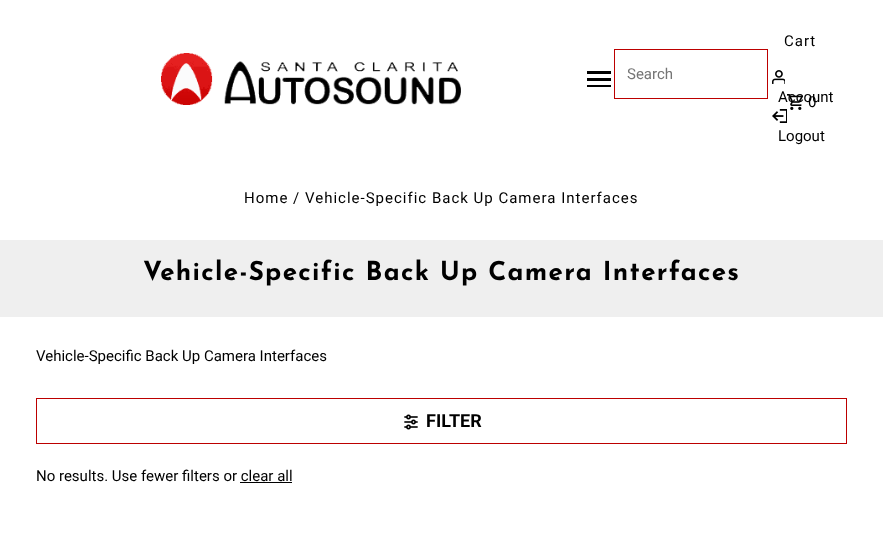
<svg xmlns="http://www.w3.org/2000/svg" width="883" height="543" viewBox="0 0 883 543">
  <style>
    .t1 { font: 15px Roboto; fill: #757575; }
    .t2 { font: 15px Roboto; letter-spacing: 1px; fill: #000; }
    .t3 { font: 15px Roboto; fill: #000; }
    .t4 { font: bold 26px Josefin Sans; letter-spacing: 1.3px; fill: #000; }
    .t5 { font: bold 18px Roboto; fill: #000; }
  </style>
  <rect width="100%" height="100%" fill="#fff"/>
  <image x="161" y="53" width="300" height="52" href="images/1.png"/>
  <rect x="587" y="85" width="24" height="2" fill="#000"/>
  <rect x="587" y="78" width="24" height="3" fill="#000"/>
  <rect x="587" y="71" width="24" height="3" fill="#000"/>
  <rect x="614.5" y="49.5" width="153" height="49" fill="none" stroke="#bc0000"/>
  <text x="627" y="79" class="t1">Search</text>
  <text x="784" y="46" class="t2">Cart</text>
  <text x="778" y="102" class="t3">Account</text>
  <image x="787" y="94" width="16" height="16" href="images/2.png"/>
  <text x="808" y="107" class="t2">0</text>
  <image x="772" y="70" width="13" height="14" href="images/3.png"/>
  <image x="772" y="109" width="15" height="14" href="images/4.png"/>
  <text x="778" y="141" class="t3">Logout</text>
  <text x="244" y="203" class="t2">Home / Vehicle-Specific Back Up Camera Interfaces</text>
  <rect x="0" y="240" width="883" height="77" fill="#efefef"/>
  <text x="143" y="280" class="t4">Vehicle-Specific Back Up Camera Interfaces</text>
  <text x="36" y="361" class="t3">Vehicle-Specific Back Up Camera Interfaces</text>
  <rect x="36.5" y="398.5" width="810" height="45" fill="none" stroke="#bc0000"/>
  <image x="404" y="414" width="14" height="16" href="images/5.png"/>
  <text x="426" y="427" class="t5">FILTER</text>
  <text x="36" y="481" class="t3">No results. Use fewer filters or clear all</text>
  <rect x="240" y="482" width="52" height="1" fill="#000"/>
</svg>
